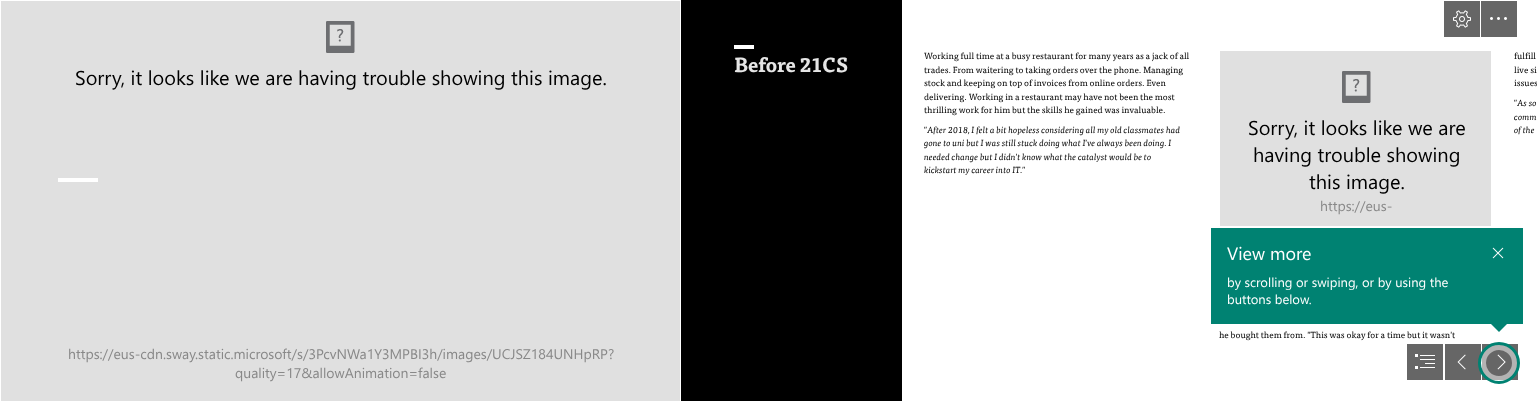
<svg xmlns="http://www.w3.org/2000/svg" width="1537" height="401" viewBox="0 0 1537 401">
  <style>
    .t1 { font: 20px Segoe UI; fill: #000; }
    .t2 { font: 14px Segoe UI; fill: #888; }
    .t3 { font: bold 20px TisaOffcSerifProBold; letter-spacing: -0.25px; fill: #e5e5e5; }
    .t4 { font: 8.9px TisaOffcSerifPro; fill: #000; }
    .t5 { font: italic 8.9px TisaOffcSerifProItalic; fill: #000; }
    .t6 { font: 18px Segoe UI; fill: #fff; }
    .t7 { font: 13px Segoe UI; fill: #fff; }
  </style>
  <rect width="100%" height="100%" fill="#fff"/>
  <rect x="1444" y="1" width="36" height="36" fill="#666"/>
  <image x="1453" y="10" width="18" height="18" href="images/1.png"/>
  <rect x="1481" y="1" width="36" height="36" fill="#666"/>
  <image x="1490" y="17" width="17" height="3" href="images/2.png"/>
  <rect x="1" y="1" width="679" height="400" fill="#e0e0e0"/>
  <image x="326" y="21" width="29" height="32" href="images/3.png"/>
  <text x="75" y="85" class="t1">Sorry, it looks like we are having trouble showing this image.</text>
  <text x="68" y="359" class="t2">https://eus-cdn.sway.static.microsoft/s/3PcvNWa1Y3MPBI3h/images/UCJSZ184UNHpRP?</text>
  <text x="235" y="378" class="t2">quality=17&amp;allowAnimation=false</text>
  <rect x="58" y="178" width="40" height="4" fill="#fff"/>
  <rect x="681" y="0" width="221" height="401" fill="#000"/>
  <rect x="734" y="45" width="20" height="4" fill="#fff"/>
  <text x="734" y="72" class="t3">Before 21CS</text>
  <text x="924" y="59" class="t4">Working full time at a busy restaurant for many years as a jack of all</text>
  <text x="924" y="73" class="t4">trades. From waitering to taking orders over the phone. Managing</text>
  <text x="924" y="86" class="t4">stock and keeping on top of invoices from online orders. Even</text>
  <text x="924" y="100" class="t4">delivering. Working in a restaurant may have not been the most</text>
  <text x="924" y="113" class="t4">thrilling work for him but the skills he gained was invaluable.</text>
  <text x="924" y="133" class="t5">"After 2018, I felt a bit hopeless considering all my old classmates had</text>
  <text x="924" y="146" class="t5">gone to uni but I was still stuck doing what I've always been doing. I</text>
  <text x="924" y="160" class="t5">needed change but I didn't know what the catalyst would be to</text>
  <text x="924" y="173" class="t5">kickstart my career into IT."</text>
  <text x="1514" y="59" class="t4">fulfill</text>
  <text x="1514" y="73" class="t4">live si</text>
  <text x="1514" y="86" class="t4">issues</text>
  <text x="1514" y="106" class="t5">"As so</text>
  <text x="1514" y="120" class="t5">comm</text>
  <text x="1514" y="133" class="t5">of the</text>
  <text x="1219" y="338" class="t4">he bought them from. "This was okay for a time but it wasn't</text>
  <rect x="1220" y="51" width="271" height="175" fill="#e0e0e0"/>
  <image x="1342" y="71" width="29" height="32" href="images/3.png"/>
  <text x="1248" y="135" class="t1">Sorry, it looks like we are</text>
  <text x="1253" y="162" class="t1">having trouble showing</text>
  <text x="1309" y="189" class="t1">this image.</text>
  <text x="1320" y="211" class="t2">https://eus-</text>
  <rect x="1211" y="228" width="312" height="96" fill="#008272"/>
  <text x="1227" y="260" class="t6">View more</text>
  <text x="1227" y="287" class="t7">by scrolling or swiping, or by using the</text>
  <text x="1227" y="304" class="t7">buttons below.</text>
  <image x="1492" y="247" width="12" height="12" href="images/4.png"/>
  <path d="M1491 324H1507L1499 332Z" fill="#008272"/>
  <rect x="1445" y="344" width="36" height="36" fill="#666"/>
  <rect x="1482" y="344" width="36" height="36" fill="#666"/>
  <image x="1497" y="354" width="9" height="16" href="images/7.png"/>
  <circle cx="1499" cy="363" r="16.5" fill="none" stroke="#ffffff80" stroke-width="7"/>
  <circle cx="1499" cy="363" r="19.5" fill="none" stroke="#008272" stroke-width="3"/>
  <rect x="1407" y="344" width="36" height="36" fill="#666"/>
  <image x="1415" y="354" width="20" height="15" href="images/5.png"/>
  <image x="1457" y="354" width="9" height="16" href="images/6.png"/>
</svg>
